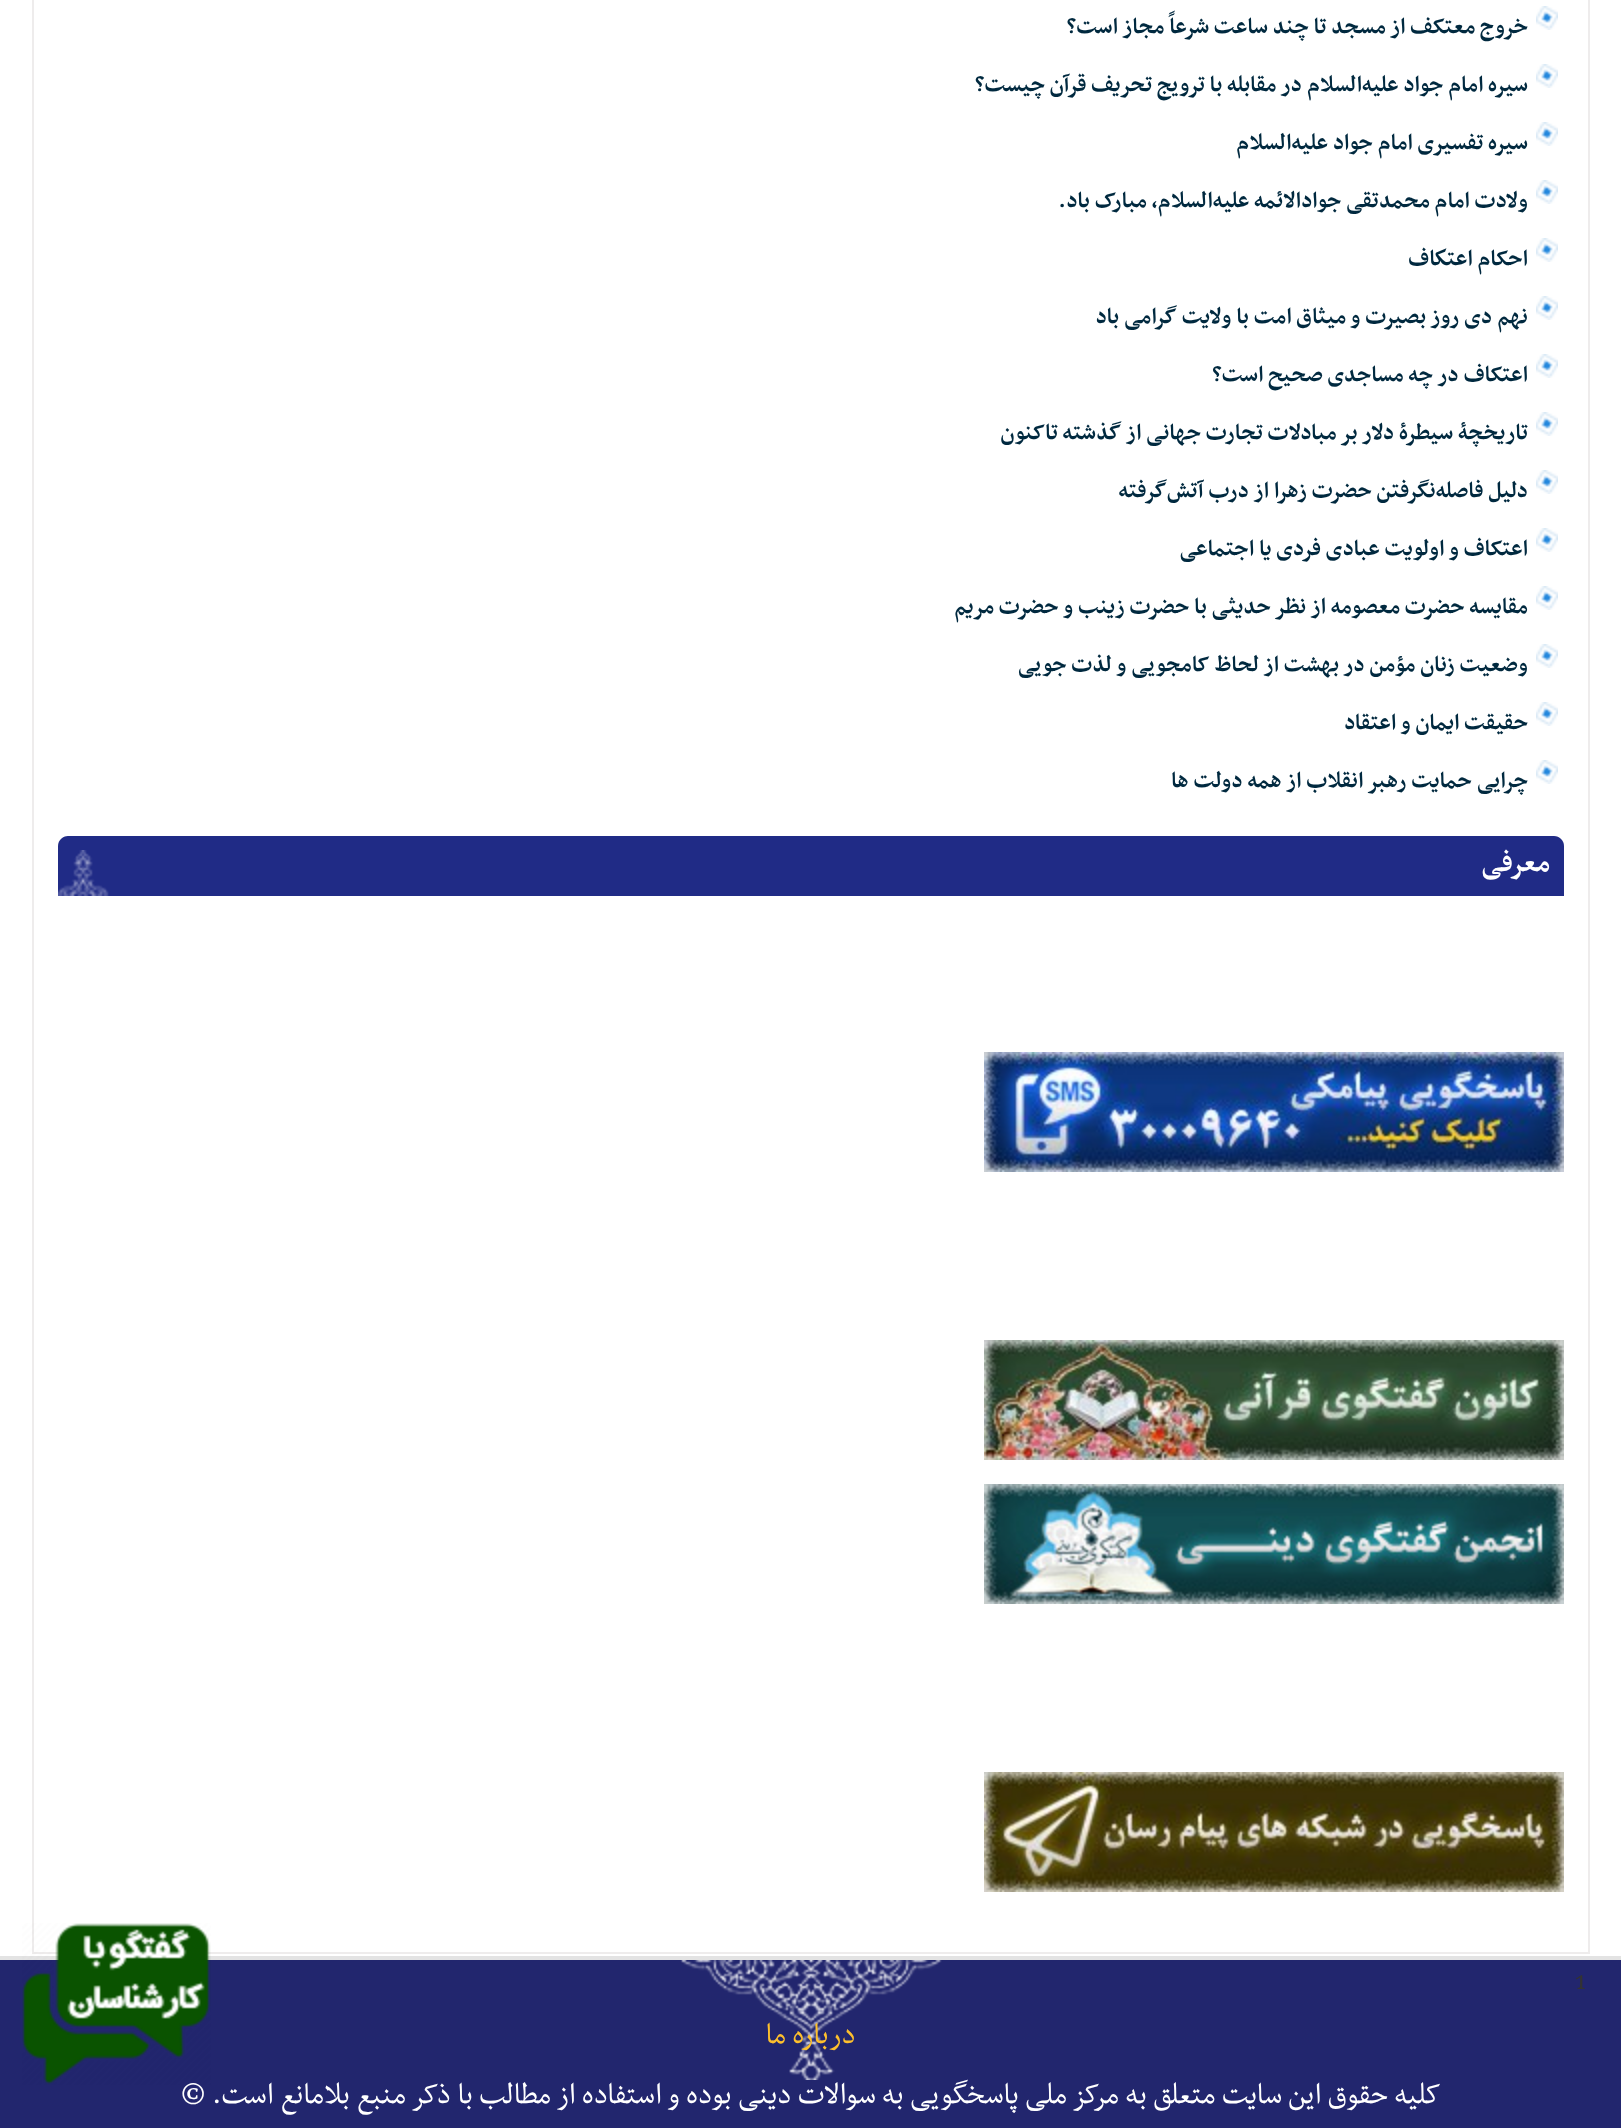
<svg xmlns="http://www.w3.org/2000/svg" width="1621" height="2128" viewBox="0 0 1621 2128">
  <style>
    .t1 { font: bold 26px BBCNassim; direction: rtl; fill: #00293f; }
    .t2 { font: bold 32px BBCNassim; direction: rtl; fill: #fff; }
    .t3 { font: 34px BBCNassim; direction: rtl; fill: #fff; }
    .t4 { font: 30px BBCNassim; fill: #333; }
    .t5 { font: 34px BBCNassim; direction: rtl; fill: #fec02d; }
  </style>
  <rect width="100%" height="100%" fill="#fff"/>
  <rect x="33" y="-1" width="1556" height="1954" fill="none" stroke="#eeecec" stroke-width="2"/>
  <image x="1536" y="6" width="22" height="24" href="images/1.png"/>
  <text x="1528" y="33" class="t1">خروج معتکف از مسجد تا چند ساعت شرعاً مجاز است؟</text>
  <image x="1536" y="64" width="22" height="24" href="images/1.png"/>
  <text x="1528" y="91" class="t1">سیره امام جواد علیه‌السلام در مقابله با ترویج تحریف قرآن چیست؟</text>
  <image x="1536" y="122" width="22" height="24" href="images/1.png"/>
  <text x="1528" y="149" class="t1">سیره تفسیری امام جواد علیه‌السلام</text>
  <image x="1536" y="180" width="22" height="24" href="images/1.png"/>
  <text x="1528" y="207" class="t1">ولادت امام محمدتقی جوادالائمه علیه‌السلام، مبارک باد.</text>
  <image x="1536" y="238" width="22" height="24" href="images/1.png"/>
  <text x="1528" y="265" class="t1">احکام اعتكاف</text>
  <image x="1536" y="296" width="22" height="24" href="images/1.png"/>
  <text x="1528" y="323" class="t1">نهم دی روز بصیرت و میثاق امت با ولایت گرامی باد</text>
  <image x="1536" y="354" width="22" height="24" href="images/1.png"/>
  <text x="1528" y="381" class="t1">اعتکاف در چه مساجدی صحیح است؟</text>
  <image x="1536" y="412" width="22" height="24" href="images/1.png"/>
  <text x="1528" y="439" class="t1">تاریخچۀ سیطرۀ دلار بر مبادلات تجارت جهانی از گذشته تاکنون</text>
  <image x="1536" y="470" width="22" height="24" href="images/1.png"/>
  <text x="1528" y="497" class="t1">دلیل فاصله‌نگرفتن حضرت زهرا از درب آتش‌گرفته</text>
  <image x="1536" y="528" width="22" height="24" href="images/1.png"/>
  <text x="1528" y="555" class="t1">اعتکاف و اولویت عبادی فردی یا اجتماعی</text>
  <image x="1536" y="586" width="22" height="24" href="images/1.png"/>
  <text x="1528" y="613" class="t1">مقایسه حضرت معصومه از نظر حدیثی با حضرت زینب و حضرت مریم</text>
  <image x="1536" y="644" width="22" height="24" href="images/1.png"/>
  <text x="1528" y="671" class="t1">وضعیت زنان مؤمن در بهشت از لحاظ کامجویی و لذت جویی</text>
  <image x="1536" y="702" width="22" height="24" href="images/1.png"/>
  <text x="1528" y="729" class="t1">حقیقت ایمان و اعتقاد</text>
  <image x="1536" y="760" width="22" height="24" href="images/1.png"/>
  <text x="1528" y="787" class="t1">چرایی حمایت رهبر انقلاب از همه دولت ها</text>
  <path d="M68 836H1554C1559.5 836 1564 840.5 1564 846V896H58V846C58 840.5 62.5 836 68 836Z" fill="#202b86"/>
  <image x="58" y="850" width="51" height="46" href="images/2.png"/>
  <text x="1550" y="871" class="t2">معرفی</text>
  <image x="984" y="1052" width="580" height="120" href="images/3.png"/>
  <image x="984" y="1340" width="580" height="120" href="images/4.png"/>
  <image x="984" y="1484" width="580" height="120" href="images/5.png"/>
  <image x="984" y="1772" width="580" height="120" href="images/6.png"/>
  <rect x="0" y="1956" width="1621" height="4" fill="#e3e3e3"/>
  <rect x="0" y="1960" width="1621" height="168" fill="#22266e"/>
  <image x="680" y="1960" width="262" height="120" href="images/8.png"/>
  <text x="1441" y="2103" class="t3">کلیه حقوق این سایت متعلق به مرکز ملی پاسخگویی به سوالات دینی بوده و استفاده از مطالب با ذکر منبع بلامانع است. ©</text>
  <image x="22" y="1923" width="189" height="162" href="images/7.png"/>
  <text x="1575" y="1989" class="t4">1</text>
  <text x="856" y="2043" class="t5">درباره ما</text>
</svg>
